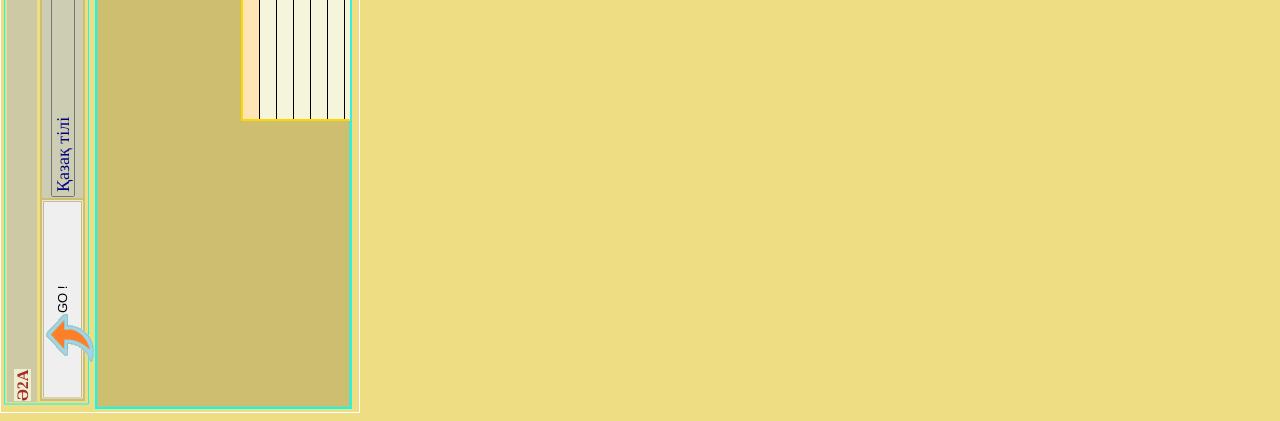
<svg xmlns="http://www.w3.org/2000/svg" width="1280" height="421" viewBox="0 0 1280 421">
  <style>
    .t1 { font: 18px Liberation Serif; fill: #000080; }
    .t2 { font: 13px Liberation Sans; fill: #000; }
    .t3 { font: bold 16px Liberation Serif; fill: #a52a2a; }
  </style>
  <defs>
    <clipPath id="clip1"><path d="M97 407V-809H349.5V407Z"/></clipPath>
  </defs>
  <rect width="100%" height="100%" fill="#eedd82"/>
  <path d="M.5 412.5V-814.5H359.5V412.5Z" fill="none" stroke="#fff"/>
  <path d="M4.5 404V-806H88.5V404Z" fill="none" stroke="#0ff"/>
  <rect x="40" y="0" width="45" height="401" fill="#cdbe70"/>
  <rect x="42" y="0" width="41" height="198" fill="#cdcdb4"/>
  <path d="M51.5 195V-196C51.5-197 52-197.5 53-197.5H73C74-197.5 74.5-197 74.5-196V195C74.5 196 74 196.5 73 196.5H53C52 196.5 51.5 196 51.5 195Z" fill="none" stroke="#767676"/>
  <text x="69" y="192" transform="rotate(-90 69 192)" class="t1">Қазақ тілі</text>
  <path d="M42.5 398V200.5H82.5V398Z" fill="none" stroke="#e6e6fa"/>
  <rect x="44" y="202" width="37" height="195" fill="#efefef"/>
  <text x="67" y="313" transform="rotate(-90 67 313)" class="t2">GO !</text>
  <rect x="7" y="0" width="30" height="402" fill="#cdc9a5"/>
  <rect x="14" y="369" width="17" height="32" fill="#eeeed1"/>
  <text x="28" y="401" transform="rotate(-90 28 401)" class="t3">Ә2А</text>
  <rect x="97" y="0" width="255" height="409" fill="#cdbe70"/>
  <path d="M96 408V-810H350.5V408Z" fill="none" stroke="#0ff" stroke-width="2"/>
  <rect x="260" y="0" width="90" height="121" fill="#f5f5dc"/>
  <g clip-path="url(#clip1)">
    <path d="M242 120V-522H363V120Z" fill="none" stroke="#ffd700" stroke-width="2"/>
  </g>
  <rect x="243" y="0" width="16" height="119" fill="#ffe4b5"/>
  <rect x="259" y="0" width="1" height="119" fill="#000"/>
  <rect x="276" y="0" width="1" height="119" fill="#000"/>
  <rect x="293" y="0" width="1" height="119" fill="#000"/>
  <rect x="310" y="0" width="1" height="119" fill="#000"/>
  <rect x="327" y="0" width="1" height="119" fill="#000"/>
  <rect x="344" y="0" width="1" height="119" fill="#000"/>
  <image x="46" y="314" width="48" height="48" href="images/1.png"/>
</svg>
